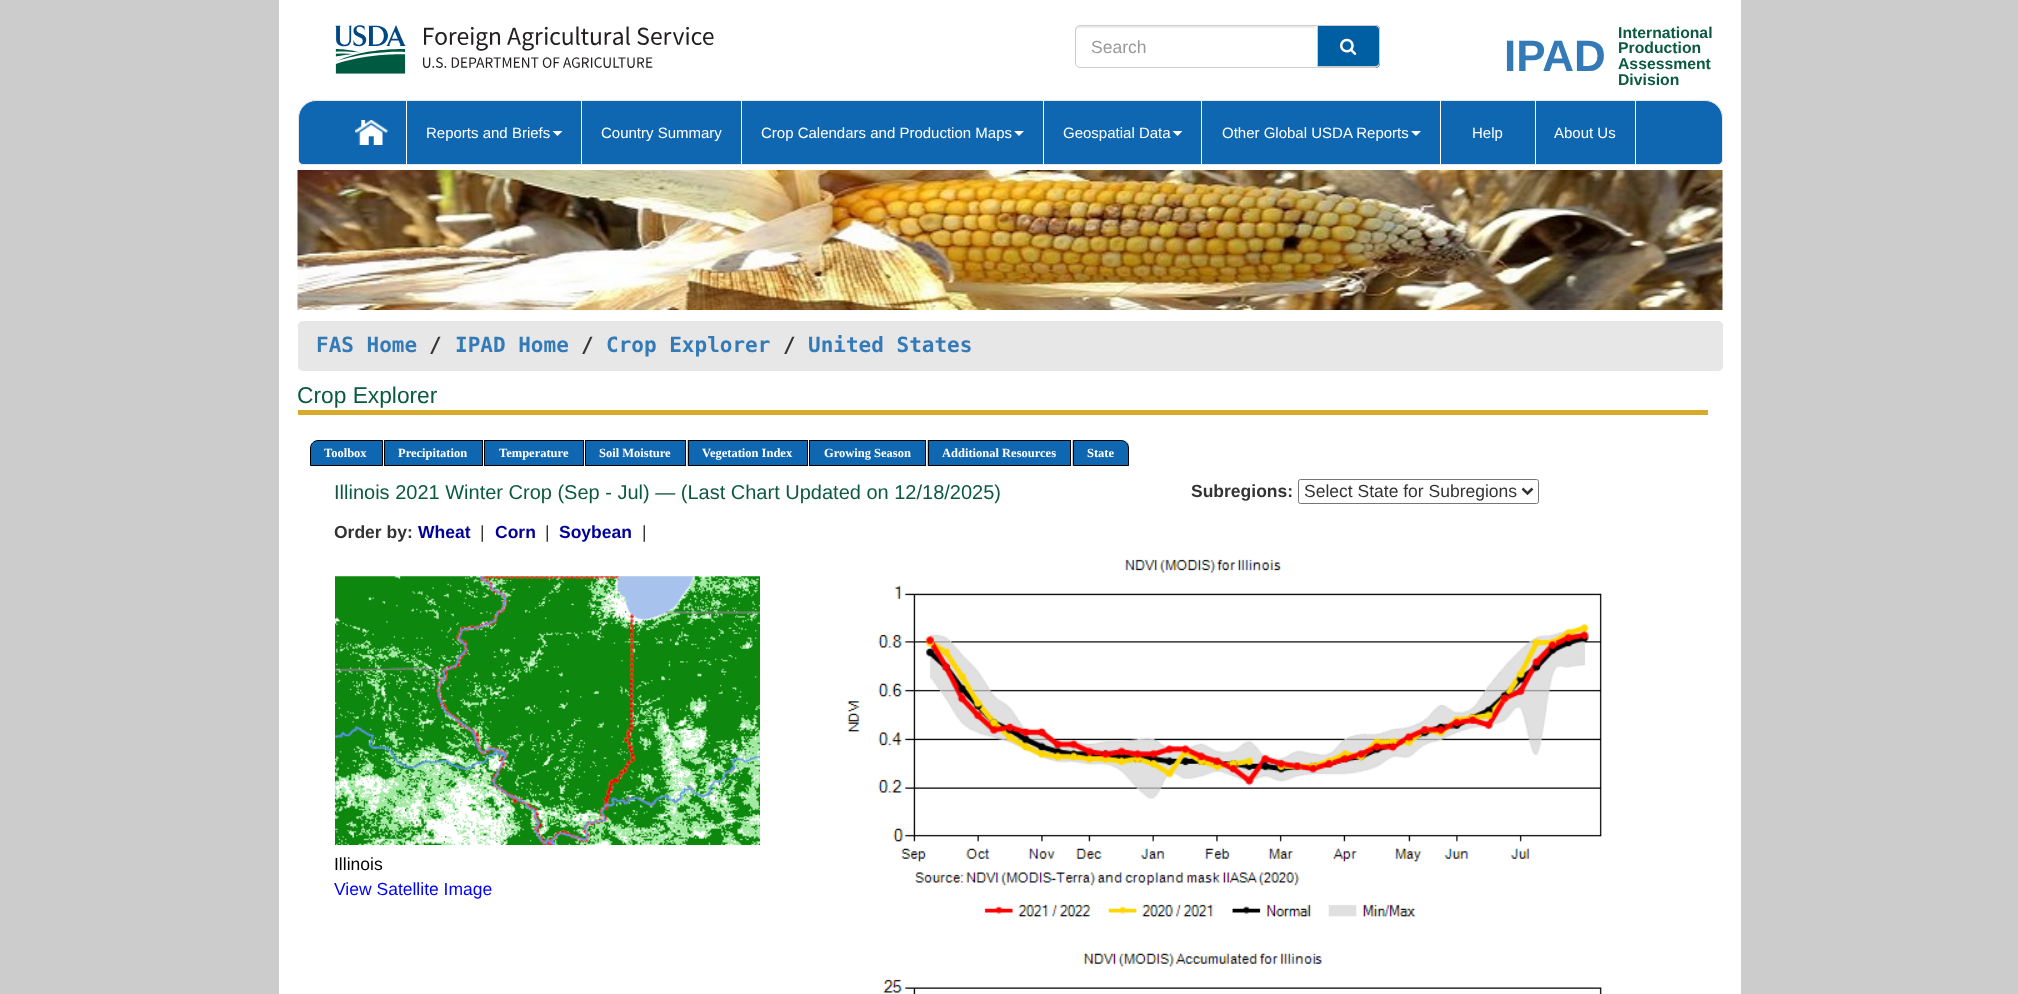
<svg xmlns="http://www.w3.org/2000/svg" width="2018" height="994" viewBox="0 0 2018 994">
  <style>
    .t1 { font: 17.5px Liberation Sans; fill: #999; }
    .t2 { font: bold 44px Liberation Sans; fill: #337ab7; }
    .t3 { font: bold 15.75px Liberation Sans; fill: #0b5941; }
    .t4 { font: 15px Liberation Sans; fill: #fff; }
    .t5 { font: bold 21px DejaVu Sans Mono; fill: #337ab7; }
    .t6 { font: bold 21px DejaVu Sans Mono; fill: #333; }
    .t7 { font: 22.75px Liberation Sans; fill: #0b5941; }
    .t8 { font: bold 12.5px Liberation Serif; fill: #fff; }
    .t9 { font: 20px Liberation Sans; fill: #0b5941; }
    .t10 { font: bold 17.5px Liberation Sans; fill: #333; }
    .t11 { font: 17.5px Liberation Sans; fill: #333; }
    .t12 { font: bold 17.5px Liberation Sans; fill: #009; }
    .t13 { font: 17.5px Liberation Sans; fill: #000; }
    .t14 { font: 17.5px Liberation Sans; fill: #00f; }
  </style>
  <rect width="100%" height="100%" fill="#ccc"/>
  <rect x="279" y="0" width="1462" height="994" fill="#fff"/>
  <image x="335" y="25" width="379" height="49" href="images/1.png"/>
  <path d="M1080 28H1316V26H1078C1076 27 1076 29 1076 31C1076 29 1078 28 1080 28Z" fill="#ececec"/>
  <path d="M1080 25.5H1317.5V67.5H1080C1077.5 67.5 1075.5 65.5 1075.5 63V30C1075.5 27.5 1077.5 25.5 1080 25.5Z" fill="none" stroke="#ccc"/>
  <text x="1091" y="53" class="t1">Search</text>
  <path d="M1318 25H1375C1378 25 1380 27 1380 30V63C1380 66 1378 68 1375 68H1318Z" fill="#005ea2"/>
  <path d="M1318 25H1375C1378 25 1380 27 1380 30V62C1380 65 1378 68 1375 68H1318ZM1318 26H1375C1377 26 1379 28 1379 30V62C1379 65 1377 66 1375 66H1318Z" fill="#ccc" fill-rule="evenodd"/>
  <image x="1340" y="38" width="17" height="17" href="images/2.png"/>
  <text x="1504" y="71" class="t2">IPAD</text>
  <text x="1618" y="38" class="t3">International</text>
  <text x="1618" y="53" class="t3">Production</text>
  <text x="1618" y="69" class="t3">Assessment</text>
  <text x="1618" y="85" class="t3">Division</text>
  <path d="M316 100.5H1705C1714.5 100.5 1722.5 108.5 1722.5 118V160C1722.5 162.5 1720.5 164.5 1718 164.5H303C300.5 164.5 298.5 162.5 298.5 160V118C298.5 108.5 306.5 100.5 316 100.5Z" fill="#0e67b0" stroke="#e7e7e7"/>
  <rect x="406" y="101" width="1" height="63" fill="#fff"/>
  <image x="355" y="120" width="33" height="25" href="images/3.png"/>
  <rect x="581" y="101" width="1" height="63" fill="#fff"/>
  <text x="426" y="138" class="t4">Reports and Briefs</text>
  <path d="M552.5 131H562.5L557.5 136Z" fill="#fff"/>
  <rect x="741" y="101" width="1" height="63" fill="#fff"/>
  <text x="601" y="138" class="t4">Country Summary</text>
  <rect x="1043" y="101" width="1" height="63" fill="#fff"/>
  <text x="761" y="138" class="t4">Crop Calendars and Production Maps</text>
  <path d="M1014 131H1024L1019 136Z" fill="#fff"/>
  <rect x="1201" y="101" width="1" height="63" fill="#fff"/>
  <text x="1063" y="138" class="t4">Geospatial Data</text>
  <path d="M1172.5 131H1182.5L1177.5 136Z" fill="#fff"/>
  <rect x="1440" y="101" width="1" height="63" fill="#fff"/>
  <text x="1222" y="138" class="t4">Other Global USDA Reports</text>
  <path d="M1411 131H1421L1416 136Z" fill="#fff"/>
  <rect x="1535" y="101" width="1" height="63" fill="#fff"/>
  <text x="1472" y="138" class="t4">Help</text>
  <rect x="1635" y="101" width="1" height="63" fill="#fff"/>
  <text x="1554" y="138" class="t4">About Us</text>
  <image x="297" y="170" width="1426" height="140" href="images/4.png"/>
  <rect x="298" y="321" width="1425" height="50" rx="5" fill="#e7e7e7"/>
  <text x="316" y="352" class="t5">FAS Home</text>
  <text x="429" y="352" class="t6">/</text>
  <text x="455" y="352" class="t5">IPAD Home</text>
  <text x="581" y="352" class="t6">/</text>
  <text x="606" y="352" class="t5">Crop Explorer</text>
  <text x="783" y="352" class="t6">/</text>
  <text x="808" y="352" class="t5">United States</text>
  <rect x="298" y="410" width="1410" height="5" fill="#d8ab2d"/>
  <text x="297" y="403" class="t7">Crop Explorer</text>
  <path d="M318 440.5H382.5V465.5H310.5V448C310.5 444 314 440.5 318 440.5Z" fill="#0e67b0" stroke="#000"/>
  <text x="324" y="457" class="t8">Toolbox</text>
  <rect x="384.5" y="440.5" width="98" height="25" fill="#0e67b0" stroke="#000"/>
  <text x="398" y="457" class="t8">Precipitation</text>
  <rect x="484.5" y="440.5" width="99" height="25" fill="#0e67b0" stroke="#000"/>
  <text x="499" y="457" class="t8">Temperature</text>
  <rect x="687" y="440" width="1" height="26" fill="#c8c8c8"/>
  <rect x="585.5" y="440.5" width="100" height="25" fill="#0e67b0" stroke="#000"/>
  <text x="599" y="457" class="t8">Soil Moisture</text>
  <rect x="688.5" y="440.5" width="119" height="25" fill="#0e67b0" stroke="#000"/>
  <text x="702" y="457" class="t8">Vegetation Index</text>
  <rect x="927" y="440" width="1" height="26" fill="#c8c8c8"/>
  <rect x="809.5" y="440.5" width="116" height="25" fill="#0e67b0" stroke="#000"/>
  <text x="824" y="457" class="t8">Growing Season</text>
  <rect x="1072" y="440" width="1" height="26" fill="#c8c8c8"/>
  <rect x="928.5" y="440.5" width="142" height="25" fill="#0e67b0" stroke="#000"/>
  <text x="942" y="457" class="t8">Additional Resources</text>
  <path d="M1073 440H1122C1126.5 440 1130 443.5 1130 448V466H1073Z" fill="#c8c8c8"/>
  <rect x="1129" y="444" width="1" height="22" fill="#fff"/>
  <path d="M1073.5 440.5H1121C1125 440.5 1128.5 444 1128.5 448V465.5H1073.5Z" fill="#0e67b0" stroke="#000"/>
  <text x="1087" y="457" class="t8">State</text>
  <text x="334" y="499" class="t9">Illinois 2021 Winter Crop (Sep - Jul) — (Last Chart Updated on 12/18/2025)</text>
  <text x="1191" y="497" class="t10">Subregions:</text>
  <rect x="1298.5" y="479.5" width="240" height="24" rx="2" fill="none" stroke="#767676"/>
  <path d="M1522.5 488.5L1527.5 493.5L1532.5 488.5" fill="none" stroke="#333" stroke-width="2.5"/>
  <text x="1304" y="497" class="t11">Select State for Subregions</text>
  <text x="334" y="538" class="t10">Order by:</text>
  <text x="418" y="538" class="t12">Wheat</text>
  <text x="480" y="538" class="t11">|</text>
  <text x="495" y="538" class="t12">Corn</text>
  <text x="545" y="538" class="t11">|</text>
  <text x="559" y="538" class="t12">Soybean</text>
  <text x="642" y="538" class="t11">|</text>
  <image x="335" y="576" width="425" height="269" href="images/5.png"/>
  <text x="334" y="870" class="t13">Illinois</text>
  <text x="334" y="895" class="t14">View Satellite Image</text>
  <image x="847" y="559" width="755" height="358" href="images/6.png"/>
  <image x="883" y="953" width="719" height="41" href="images/7.png"/>
</svg>
